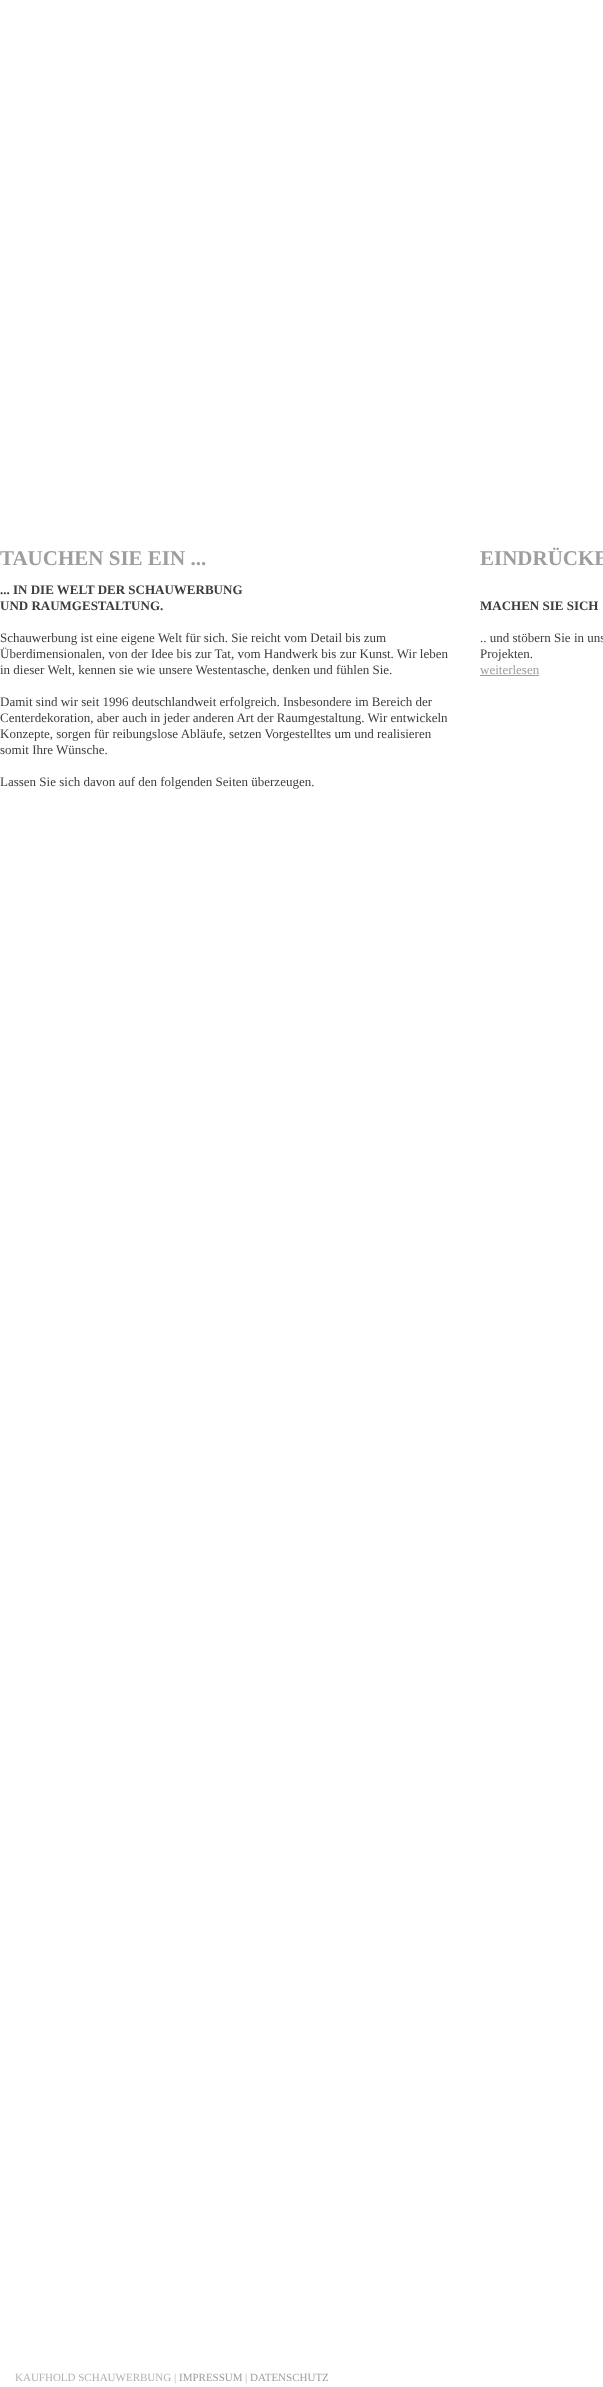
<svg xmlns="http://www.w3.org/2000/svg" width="603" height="2387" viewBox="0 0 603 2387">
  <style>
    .t1 { font: bold 21px Liberation Serif; fill: #9e9e9d; }
    .t2 { font: bold 13px Liberation Serif; fill: #3d3d3c; }
    .t3 { font: 13px Liberation Serif; fill: #3d3d3c; }
    .t4 { font: 13px Liberation Serif; fill: #9e9e9d; }
    .t5 { font: 11px Liberation Serif; fill: #b2b2b2; }
    .t6 { font: 11px Liberation Serif; fill: #9e9e9d; }
  </style>
  <rect width="100%" height="100%" fill="#fff"/>
  <text x="0" y="565" class="t1">TAUCHEN SIE EIN ...</text>
  <text x="0" y="594" class="t2">... IN DIE WELT DER SCHAUWERBUNG</text>
  <text x="0" y="610" class="t2">UND RAUMGESTALTUNG.</text>
  <text x="0" y="642" class="t3">Schauwerbung ist eine eigene Welt für sich. Sie reicht vom Detail bis zum</text>
  <text x="0" y="658" class="t3">Überdimensionalen, von der Idee bis zur Tat, vom Handwerk bis zur Kunst. Wir leben</text>
  <text x="0" y="674" class="t3">in dieser Welt, kennen sie wie unsere Westentasche, denken und fühlen Sie.</text>
  <text x="0" y="706" class="t3">Damit sind wir seit 1996 deutschlandweit erfolgreich. Insbesondere im Bereich der</text>
  <text x="0" y="722" class="t3">Centerdekoration, aber auch in jeder anderen Art der Raumgestaltung. Wir entwickeln</text>
  <text x="0" y="738" class="t3">Konzepte, sorgen für reibungslose Abläufe, setzen Vorgestelltes um und realisieren</text>
  <text x="0" y="754" class="t3">somit Ihre Wünsche.</text>
  <text x="0" y="786" class="t3">Lassen Sie sich davon auf den folgenden Seiten überzeugen.</text>
  <text x="480" y="565" class="t1">EINDRÜCKE</text>
  <text x="480" y="610" class="t2">MACHEN SIE SICH</text>
  <text x="480" y="642" class="t3">.. und stöbern Sie in uns</text>
  <text x="480" y="658" class="t3">Projekten.</text>
  <text x="480" y="674" class="t4">weiterlesen</text>
  <rect x="480" y="675" width="59" height="1" fill="#9e9e9d"/>
  <text x="15" y="2381" class="t5">KAUFHOLD SCHAUWERBUNG |</text>
  <text x="179" y="2381" class="t6">IMPRESSUM</text>
  <text x="245" y="2381" class="t5">|</text>
  <text x="250" y="2381" class="t6">DATENSCHUTZ</text>
</svg>
